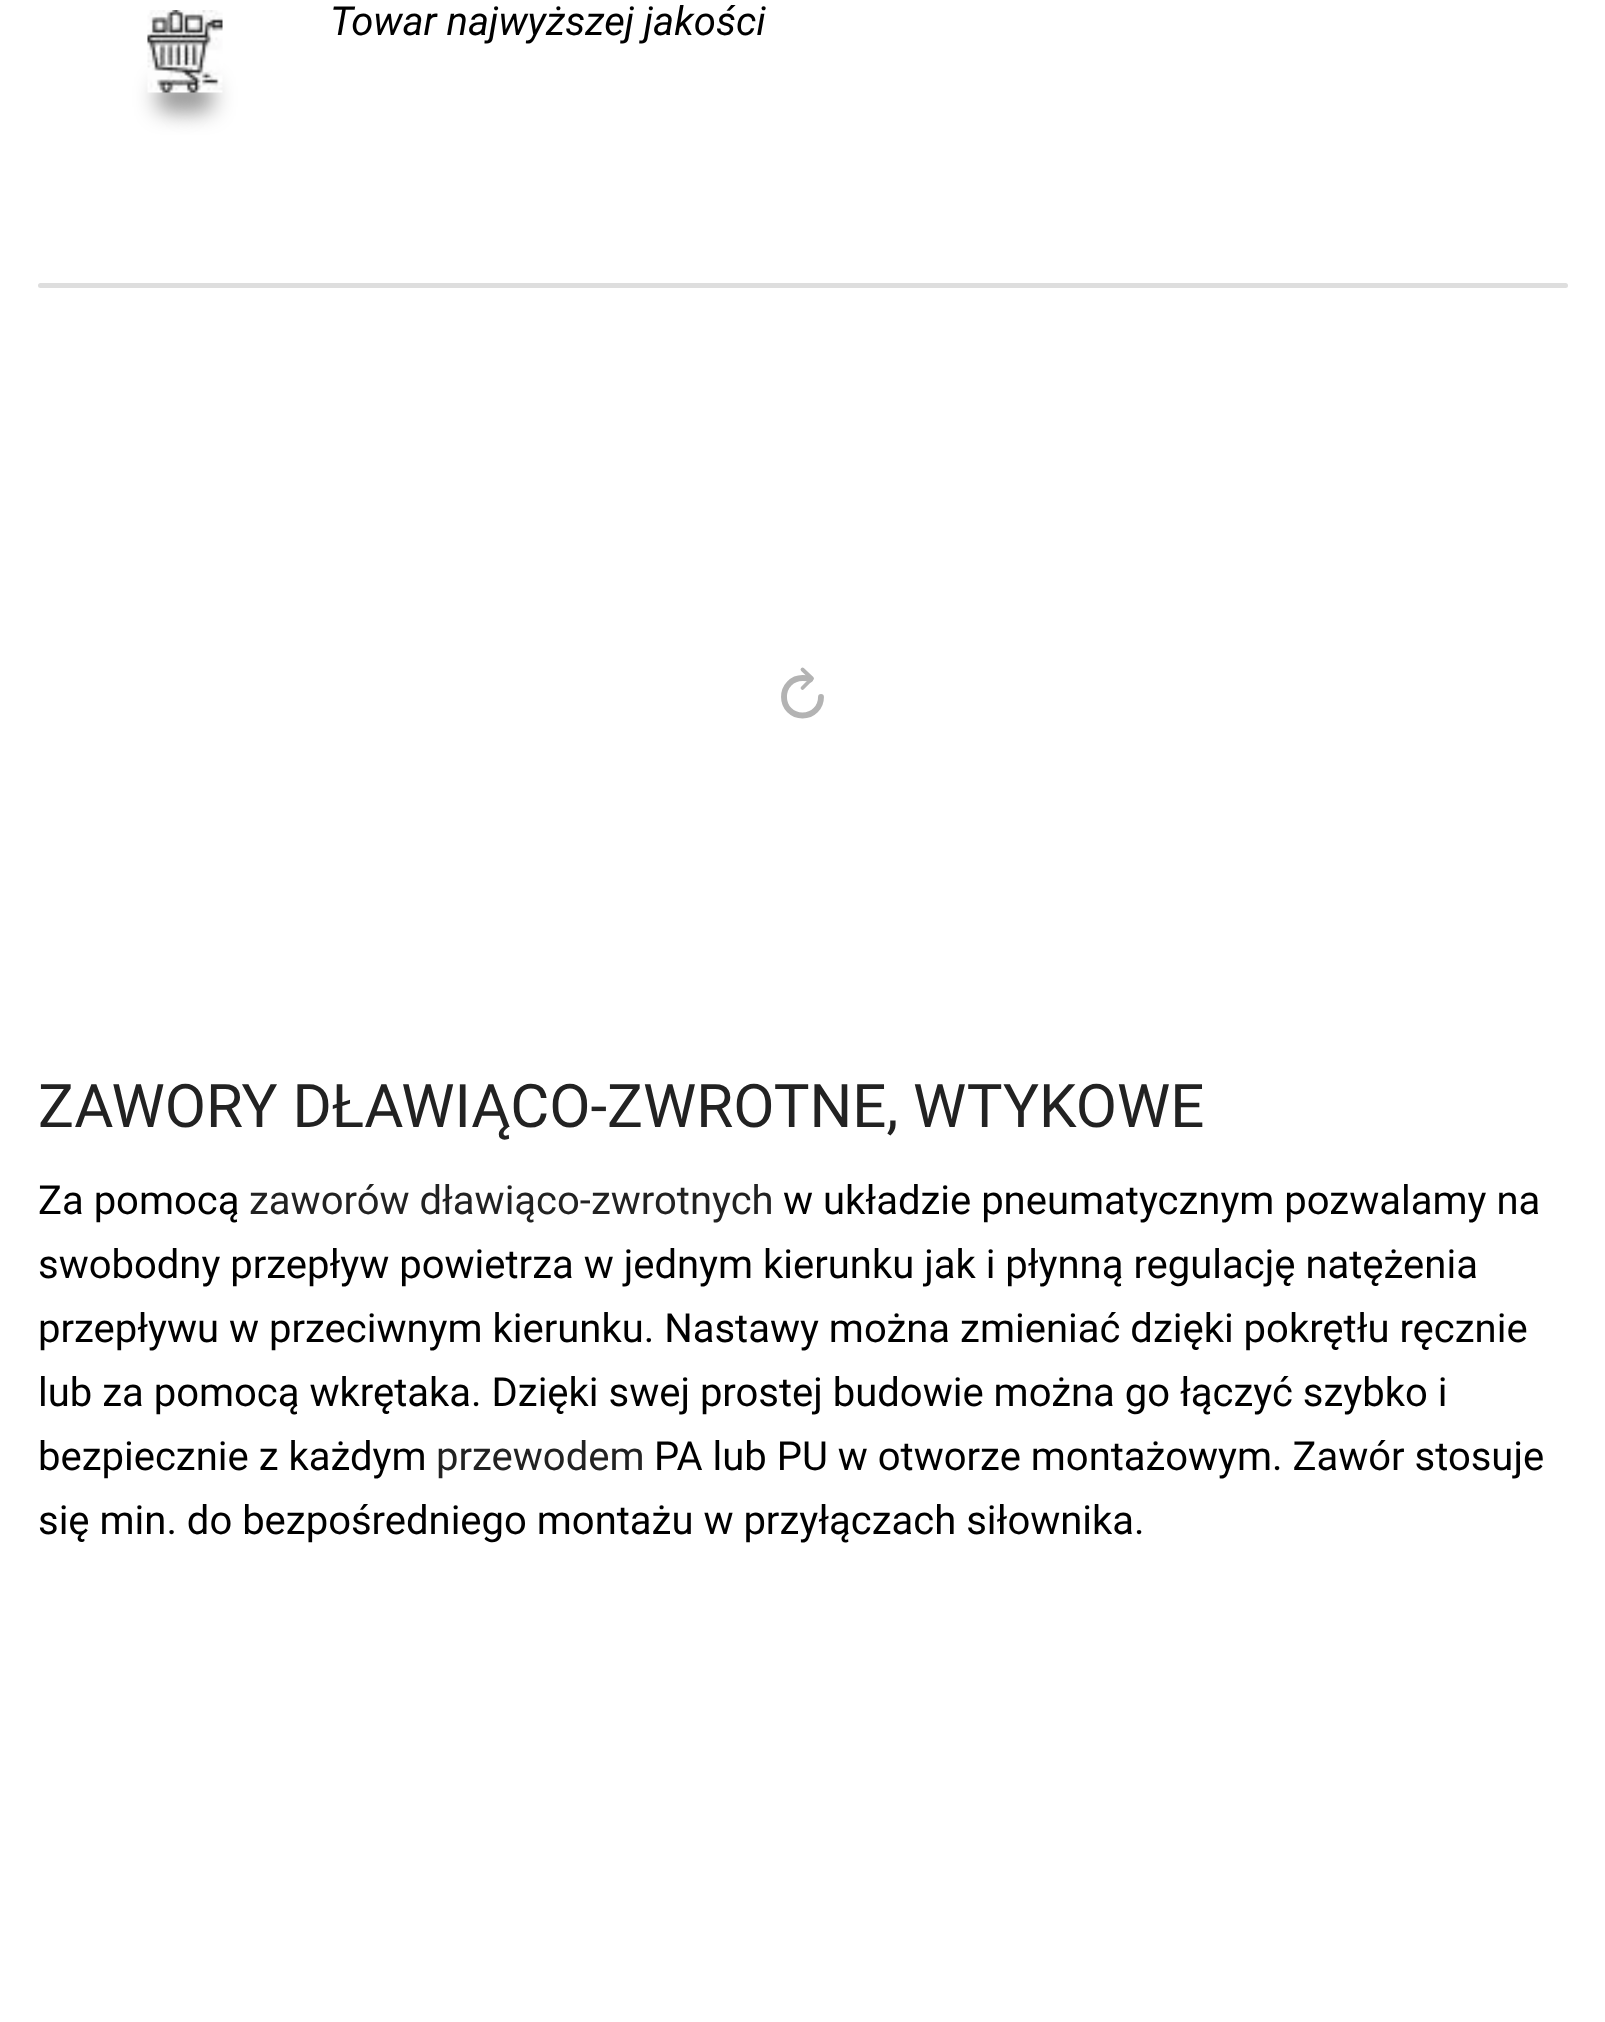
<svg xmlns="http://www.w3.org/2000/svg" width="1605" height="2022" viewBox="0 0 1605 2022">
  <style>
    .t1 { font: italic 40px Roboto; fill: #000; }
    .t2 { font: 60px Roboto; fill: #222; }
    .t3 { font: 40px Roboto; fill: #000; }
    .t4 { font: 40px Roboto; fill: #222; }
  </style>
  <rect width="100%" height="100%" fill="#fff"/>
  <rect x="160" y="85" width="25" height="23" fill="#00000099" filter="blur(12.5px)"/>
  <rect x="185" y="85" width="25" height="23" fill="#00000099" filter="blur(12.5px)"/>
  <image x="147" y="10" width="76" height="83" href="images/1.png"/>
  <text x="330" y="35" class="t1">Towar najwyższej jakości</text>
  <rect x="38" y="283" width="1530" height="5" rx="2.5" fill="#dedede"/>
  <path d="M810 679.5C810 679.5 813 678 802.5 678C792 678 784 686.5 784 697C784 707.5 792 715.5 802.5 715.5C813 715.5 821 707.5 821 697" fill="none" stroke="#b3b3b3" stroke-width="5.9" stroke-linecap="round"/>
  <path d="M802.5 669.5L812 678.5L802.5 688" fill="none" stroke="#b3b3b3" stroke-width="3.8" stroke-linecap="round" stroke-linejoin="round"/>
  <text x="38" y="1127" class="t2">ZAWORY DŁAWIĄCO-ZWROTNE, WTYKOWE</text>
  <text x="38" y="1214" class="t3">Za pomocą</text>
  <text x="249" y="1214" class="t4">zaworów dławiąco-zwrotnych</text>
  <text x="783" y="1214" class="t3">w układzie pneumatycznym pozwalamy na</text>
  <text x="38" y="1278" class="t3">swobodny przepływ powietrza w jednym kierunku jak i płynną regulację natężenia</text>
  <text x="38" y="1342" class="t3">przepływu w przeciwnym kierunku. Nastawy można zmieniać dzięki pokrętłu ręcznie</text>
  <text x="38" y="1406" class="t3">lub za pomocą wkrętaka. Dzięki swej prostej budowie można go łączyć szybko i</text>
  <text x="38" y="1470" class="t3">bezpiecznie z każdym</text>
  <text x="436" y="1470" class="t4">przewodem</text>
  <text x="654" y="1470" class="t3">PA lub PU w otworze montażowym. Zawór stosuje</text>
  <text x="38" y="1534" class="t3">się min. do bezpośredniego montażu w przyłączach siłownika.</text>
</svg>
